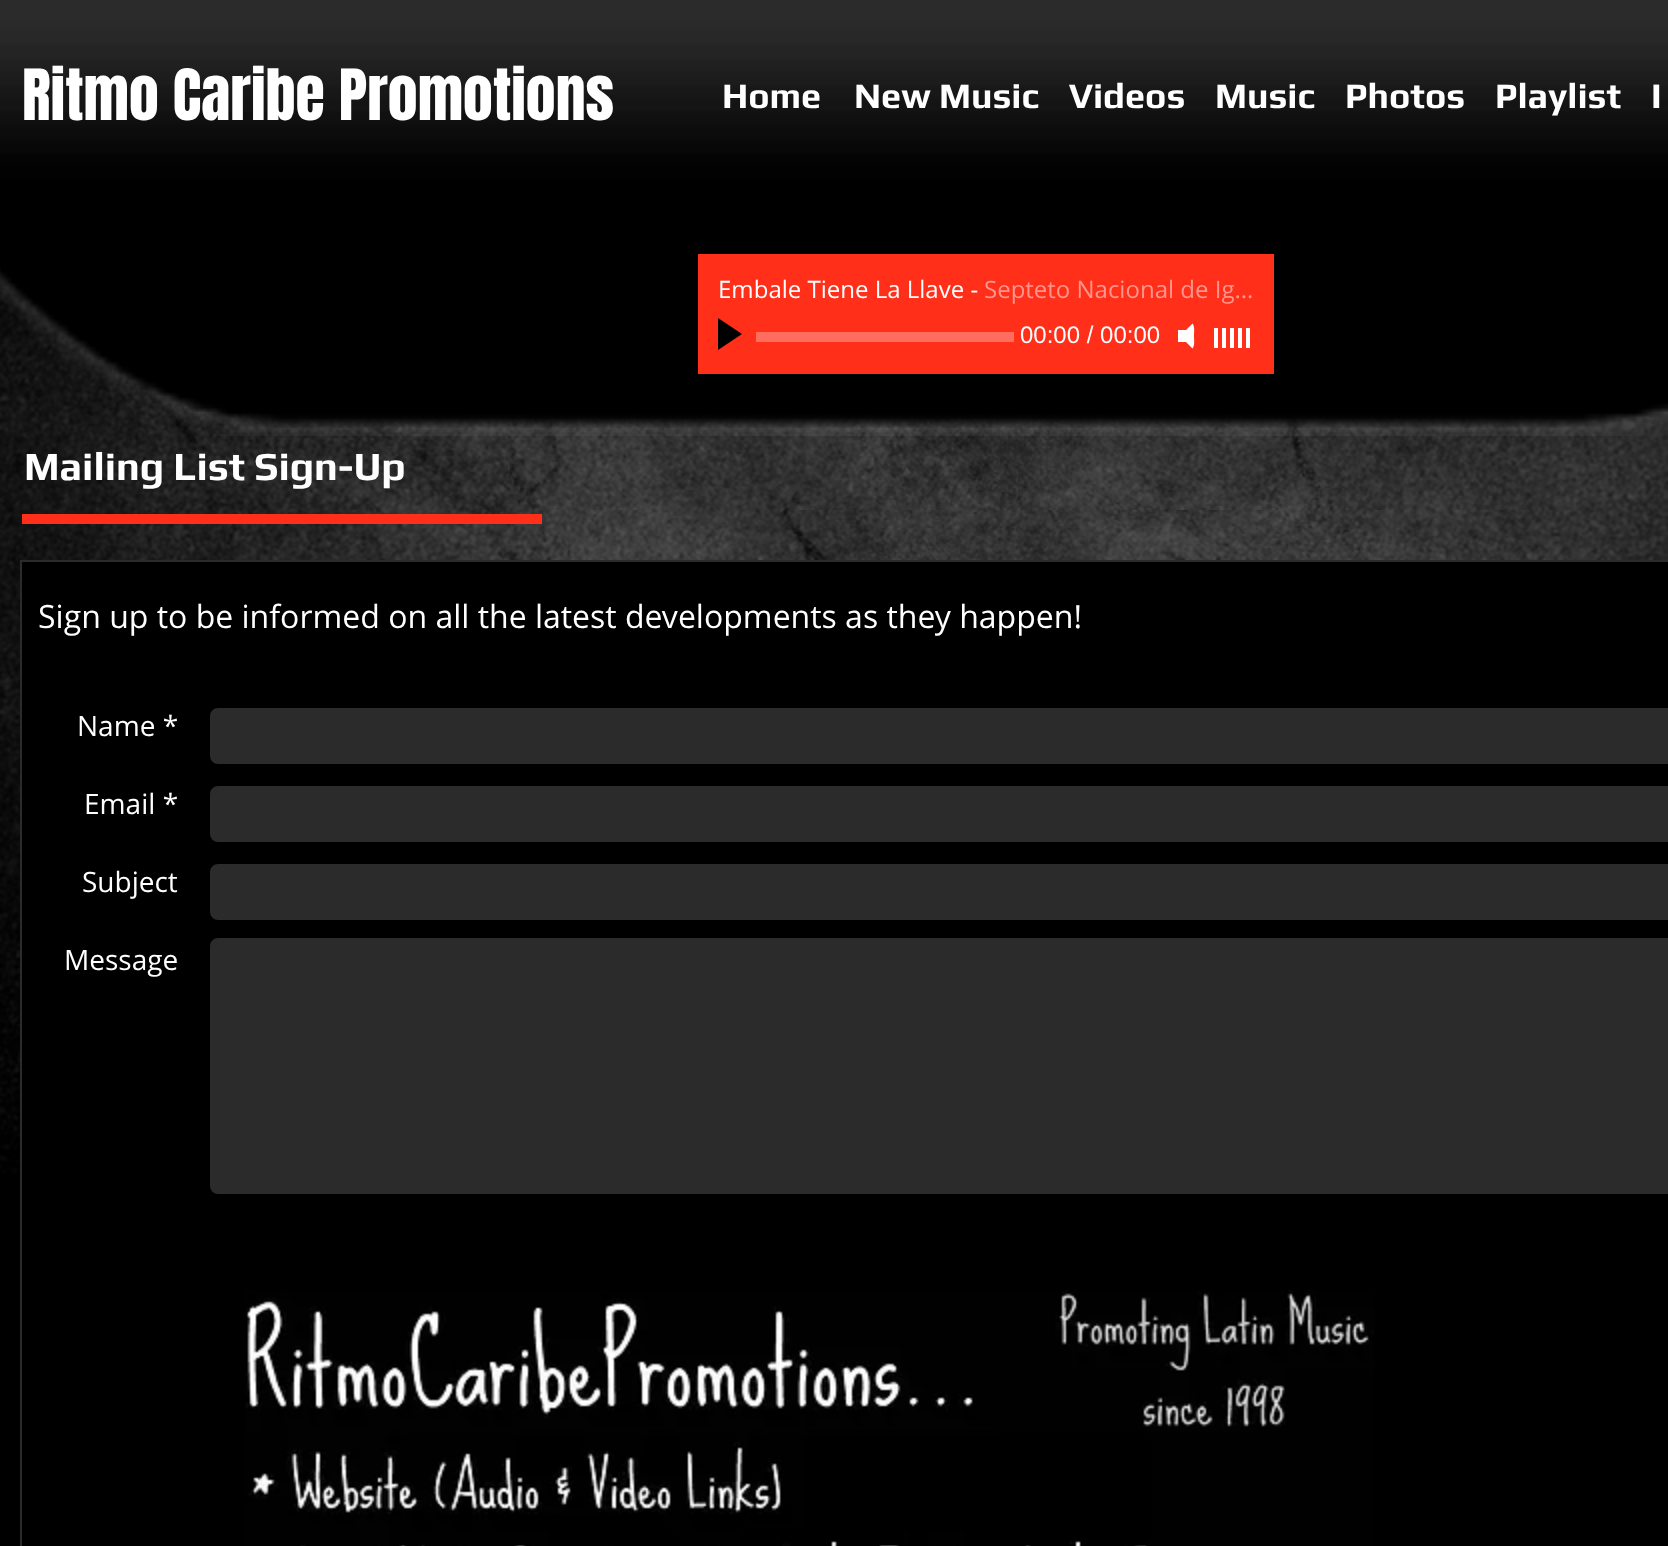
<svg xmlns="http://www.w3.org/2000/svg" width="1668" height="1546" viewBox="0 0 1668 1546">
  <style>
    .t1 { font: 60px Anton; fill: #fff; }
    .t2 { font: bold 36px Play; fill: #fff; }
    .t3 { font: 24px Open Sans; fill: #fff; }
    .t4 { font: 24px Open Sans; fill: #ff978c; }
    .t5 { font: 24px Liberation Sans; fill: #fff; }
    .t6 { font: bold 40px Play; fill: #fff; }
    .t7 { font: 32px Open Sans; fill: #fff; }
    .t8 { font: 28px Open Sans; fill: #fff; }
  </style>
  <rect width="100%" height="100%" fill="#000"/>
  <image x="0" y="267" width="1668" height="907" href="images/3.png"/>
  <image x="0" y="18" width="1668" height="418" href="images/1.png"/>
  <rect x="0" y="0" width="1668" height="18" fill="#2b2b2b"/>
  <text x="22" y="120" class="t1">Ritmo Caribe Promotions</text>
  <text x="722" y="108" class="t2">Home</text>
  <text x="854" y="108" class="t2">New Music</text>
  <text x="1069" y="108" class="t2">Videos</text>
  <text x="1215" y="108" class="t2">Music</text>
  <text x="1345" y="108" class="t2">Photos</text>
  <text x="1495" y="108" class="t2">Playlist</text>
  <text x="1651" y="108" class="t2">I</text>
  <rect x="698" y="254" width="576" height="120" fill="#ff2f19"/>
  <text x="718" y="298" class="t3">Embale Tiene La Llave -</text>
  <text x="984" y="298" class="t4">Septeto Nacional de Ig…</text>
  <path d="M718 350V318L742 334Z" fill="#000"/>
  <rect x="756" y="332" width="258" height="10" fill="#ff6d5e"/>
  <text x="1020" y="343" class="t5">00:00 / 00:00</text>
  <path d="M1180 336L1192.5 348.5C1195 345.5 1194 339.5 1194 336C1194 332.5 1195 326.5 1192.5 323.5Z" fill="#fff"/>
  <rect x="1178" y="330" width="8" height="12" fill="#fff"/>
  <rect x="1214" y="328" width="4" height="20" fill="#fff"/>
  <rect x="1222" y="328" width="4" height="20" fill="#fff"/>
  <rect x="1230" y="328" width="4" height="20" fill="#fff"/>
  <rect x="1238" y="328" width="4" height="20" fill="#fff"/>
  <rect x="1246" y="328" width="4" height="20" fill="#fff"/>
  <text x="24" y="480" class="t6">Mailing List Sign-Up</text>
  <rect x="22" y="514" width="520" height="10" fill="#ff2f19"/>
  <rect x="22" y="562" width="1646" height="612" fill="#000"/>
  <rect x="21" y="561" width="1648" height="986" fill="none" stroke="#2b2b2b" stroke-width="2"/>
  <text x="38" y="628" class="t7">Sign up to be informed on all the latest developments as they happen!</text>
  <text x="77" y="736" class="t8">Name *</text>
  <rect x="209" y="707" width="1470" height="58" rx="9" fill="#2b2b2b" stroke="#000" stroke-width="2"/>
  <text x="84" y="814" class="t8">Email *</text>
  <rect x="209" y="785" width="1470" height="58" rx="9" fill="#2b2b2b" stroke="#000" stroke-width="2"/>
  <text x="82" y="892" class="t8">Subject</text>
  <rect x="209" y="863" width="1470" height="58" rx="9" fill="#2b2b2b" stroke="#000" stroke-width="2"/>
  <text x="64" y="970" class="t8">Message</text>
  <rect x="209" y="937" width="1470" height="258" rx="9" fill="#2b2b2b" stroke="#000" stroke-width="2"/>
  <image x="245" y="1290" width="1129" height="256" href="images/2.png"/>
</svg>
